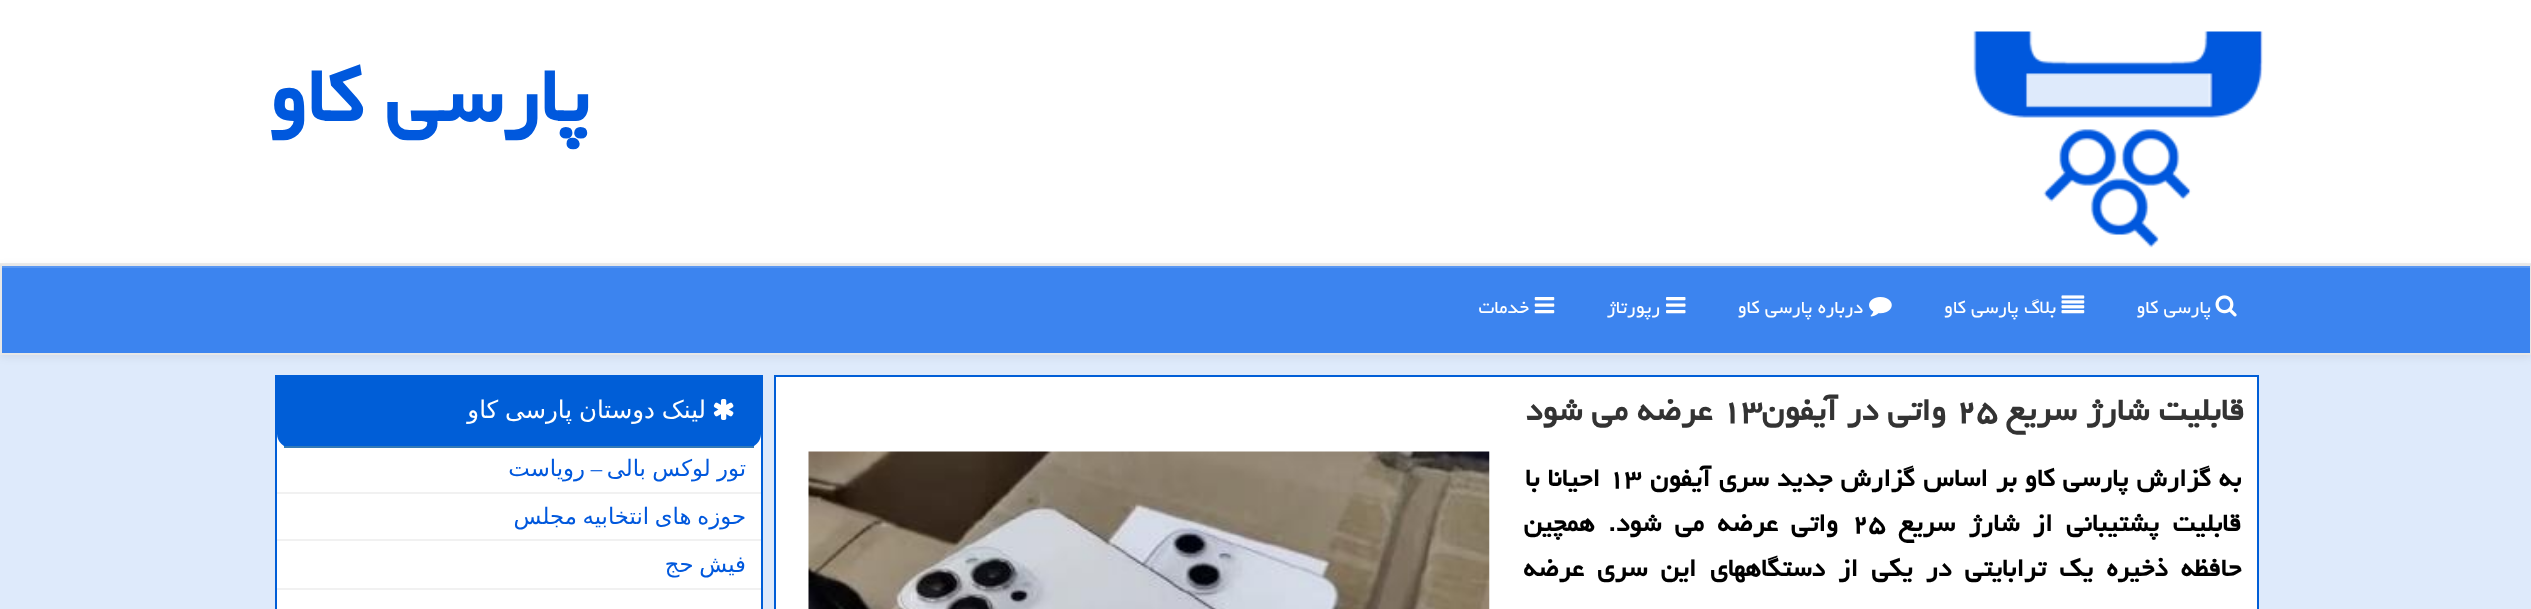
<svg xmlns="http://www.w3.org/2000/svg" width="2531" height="609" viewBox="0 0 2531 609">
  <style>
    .t1 { font: bold 98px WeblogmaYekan; direction: rtl; fill: #0058dd; }
    .t2 { font: 22.75px WeblogmaYekan; direction: rtl; fill: #fff; }
    .t3 { font: bold 39.25px WeblogmaYekan; direction: rtl; fill: #333; }
    .t4 { font: bold 39.25px WeblogmaYekan; fill: #333; }
    .t5 { font: bold 31.5px WeblogmaYekan; direction: rtl; fill: #000; }
    .t6 { font: bold 31.5px WeblogmaYekan; fill: #000; }
    .t7 { font: 24.5px DejaVu Sans; direction: rtl; fill: #fff; }
    .t8 { font: 22.75px DejaVu Sans; direction: rtl; fill: #0058dd; }
    .t9 { font: 22.75px Liberation Serif; direction: rtl; fill: #0058dd; }
  </style>
  <rect width="100%" height="100%" fill="#deeafb"/>
  <rect x="0" y="0" width="2531" height="263" fill="#fff"/>
  <rect x="0" y="263" width="2531" height="1" fill="#eee"/>
  <image x="1973" y="31" width="290" height="217" href="images/1.png"/>
  <text x="589" y="121" class="t1">پارسی كاو</text>
  <rect x="0" y="266" width="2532" height="91" fill="#00000012" filter="blur(4.5px)"/>
  <rect x="2" y="268" width="2528" height="85" fill="#3c84ef"/>
  <rect x="2" y="266" width="2529" height="2" fill="#5996f1"/>
  <rect x="1" y="265" width="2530" height="89" fill="none" stroke="#e7e7e7" stroke-width="2"/>
  <image x="2215" y="295" width="22" height="22" href="images/2.png"/>
  <text x="2211" y="313" class="t2">پارسی کاو</text>
  <image x="2061" y="295" width="24" height="19" href="images/3.png"/>
  <text x="2056" y="313" class="t2">بلاگ پارسی كاو</text>
  <image x="1869" y="297" width="23" height="20" href="images/4.png"/>
  <text x="1863" y="313" class="t2">درباره پارسی كاو</text>
  <image x="1666" y="297" width="20" height="17" href="images/5.png"/>
  <text x="1660" y="313" class="t2">رپورتاژ</text>
  <image x="1534" y="297" width="21" height="17" href="images/6.png"/>
  <text x="1529" y="313" class="t2">خدمات</text>
  <rect x="775" y="376" width="1483" height="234" fill="#fff" stroke="#005ed7" stroke-width="2"/>
  <text x="2244" y="420" class="t3">قابلیت شارژ سریع</text>
  <text x="1956" y="420" class="t4">۲۵</text>
  <text x="1946" y="420" class="t3">واتی در آیفون</text>
  <text x="1721" y="420" class="t4">۱۳</text>
  <text x="1712" y="420" class="t3">عرضه می شود</text>
  <text x="2241" y="486" word-spacing="0.5" class="t5">به گزارش پارسی کاو بر اساس گزارش جدید سری آیفون</text>
  <text x="1608" y="486" class="t6">۱۳</text>
  <text x="1600" y="486" word-spacing="0.5" class="t5">احیانا با</text>
  <text x="2241" y="531" word-spacing="6" class="t5">قابلیت پشتیبانی از شارژ سریع</text>
  <text x="1852" y="531" class="t6">۲۵</text>
  <text x="1838" y="531" word-spacing="6" class="t5">واتی عرضه می شود. همچین</text>
  <text x="2241" y="576" word-spacing="6" class="t5">حافظه ذخیره یک ترابایتی در یکی از دستگاههای این سری عرضه</text>
  <image x="808" y="451" width="682" height="158" href="images/7.png"/>
  <rect x="277" y="434" width="484" height="175" fill="#fff"/>
  <rect x="276" y="376" width="486" height="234" fill="none" stroke="#005ed7" stroke-width="2"/>
  <path d="M277 376H761V434C761 441.5 754.5 448 747 448H291C283.5 448 277 441.5 277 434Z" fill="#005ed7"/>
  <rect x="284" y="446" width="470" height="2" fill="#337ab7"/>
  <image x="713" y="399" width="21" height="21" href="images/8.png"/>
  <text x="706" y="418" word-spacing="-1" class="t7">لینک دوستان پارسی كاو</text>
  <rect x="277" y="492" width="484" height="2" fill="#f1f1f1"/>
  <text x="746" y="476" word-spacing="-1" class="t8">تور لوکس بالی</text>
  <text x="602" y="476" class="t9">–</text>
  <text x="585" y="476" class="t8">رویاست</text>
  <rect x="277" y="539" width="484" height="2" fill="#f1f1f1"/>
  <text x="746" y="524" word-spacing="-1.5" class="t8">حوزه های انتخابیه مجلس</text>
  <rect x="277" y="588" width="484" height="2" fill="#f1f1f1"/>
  <text x="746" y="572" word-spacing="-1.5" class="t8">فیش حج</text>
</svg>
